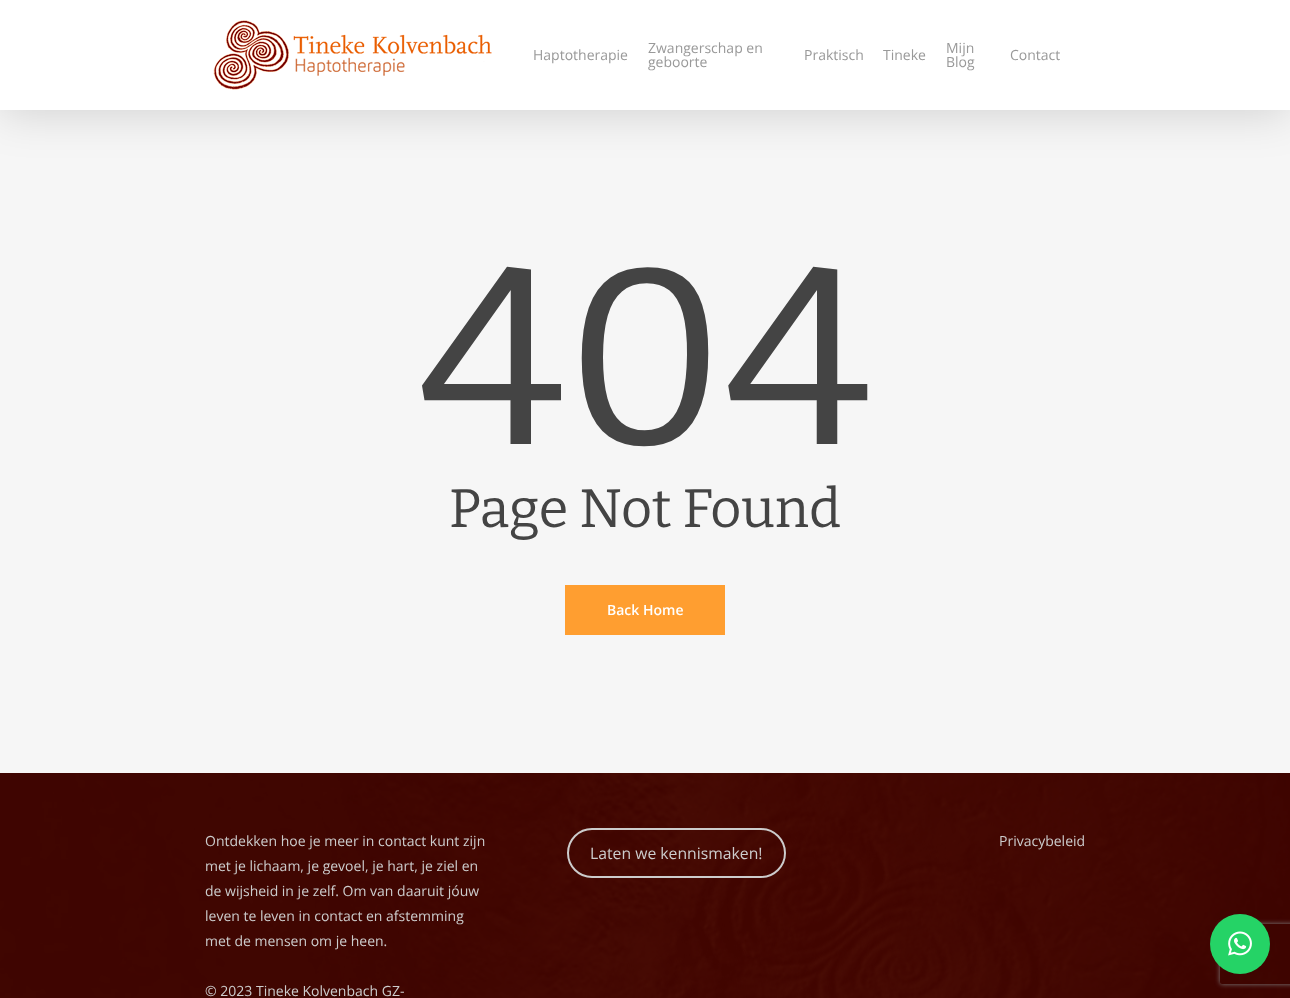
<svg xmlns="http://www.w3.org/2000/svg" width="1290" height="998" viewBox="0 0 1290 998">
  <style>
    .t1 { font: 14px Open Sans; fill: #999; }
    .t2 { font: 250px Bitter; fill: #444; }
    .t3 { font: 54px Bitter; fill: #444; }
    .t4 { font: 600 14px Open Sans; fill: #fff; }
    .t5 { font: 14px Open Sans; fill: #ccc; }
    .t6 { font: 15.75px Open Sans; fill: #ccc; }
  </style>
  <defs>
    <clipPath id="clip1"><path d="M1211 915H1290V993H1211ZM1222 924H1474C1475 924 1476 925 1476 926V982C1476 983 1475 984 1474 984H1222C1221 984 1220 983 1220 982V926C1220 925 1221 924 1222 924Z" clip-rule="evenodd"/></clipPath>
  </defs>
  <rect width="100%" height="100%" fill="#f6f6f6"/>
  <rect x="0" y="3" width="1290" height="110" fill="#00000026" filter="blur(22.5px)"/>
  <rect x="0" y="0" width="1290" height="110" fill="#fff"/>
  <image x="213" y="20" width="279" height="70" href="images/1.png"/>
  <text x="533" y="60" class="t1">Haptotherapie</text>
  <text x="648" y="53" class="t1">Zwangerschap en</text>
  <text x="648" y="67" class="t1">geboorte</text>
  <text x="804" y="60" class="t1">Praktisch</text>
  <text x="883" y="60" class="t1">Tineke</text>
  <text x="946" y="53" class="t1">Mijn</text>
  <text x="946" y="67" class="t1">Blog</text>
  <text x="1010" y="60" class="t1">Contact</text>
  <text x="419" y="444" class="t2">404</text>
  <text x="449" y="527" class="t3">Page Not Found</text>
  <rect x="565" y="585" width="160" height="50" fill="#ff9e30"/>
  <text x="607" y="615" class="t4">Back Home</text>
  <image x="0" y="773" width="1290" height="225" href="images/2.png"/>
  <text x="205" y="846" class="t5">Ontdekken hoe je meer in contact kunt zijn</text>
  <text x="205" y="871" class="t5">met je lichaam, je gevoel, je hart, je ziel en</text>
  <text x="205" y="896" class="t5">de wijsheid in je zelf. Om van daaruit jóuw</text>
  <text x="205" y="921" class="t5">leven te leven in contact en afstemming</text>
  <text x="205" y="946" class="t5">met de mensen om je heen.</text>
  <text x="205" y="996" class="t5">© 2023 Tineke Kolvenbach GZ-</text>
  <text x="999" y="846" class="t5">Privacybeleid</text>
  <rect x="568" y="829" width="217" height="48" rx="24" fill="none" stroke="#ccc" stroke-width="2"/>
  <text x="590" y="859" class="t6">Laten we kennismaken!</text>
  <g clip-path="url(#clip1)">
    <rect x="1220" y="924" width="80" height="60" rx="2" fill="#808080" filter="blur(2.5px)"/>
  </g>
  <circle cx="1240" cy="944" r="30" fill="#25d366"/>
  <image x="1228" y="931" width="24" height="25" href="images/3.png"/>
</svg>
